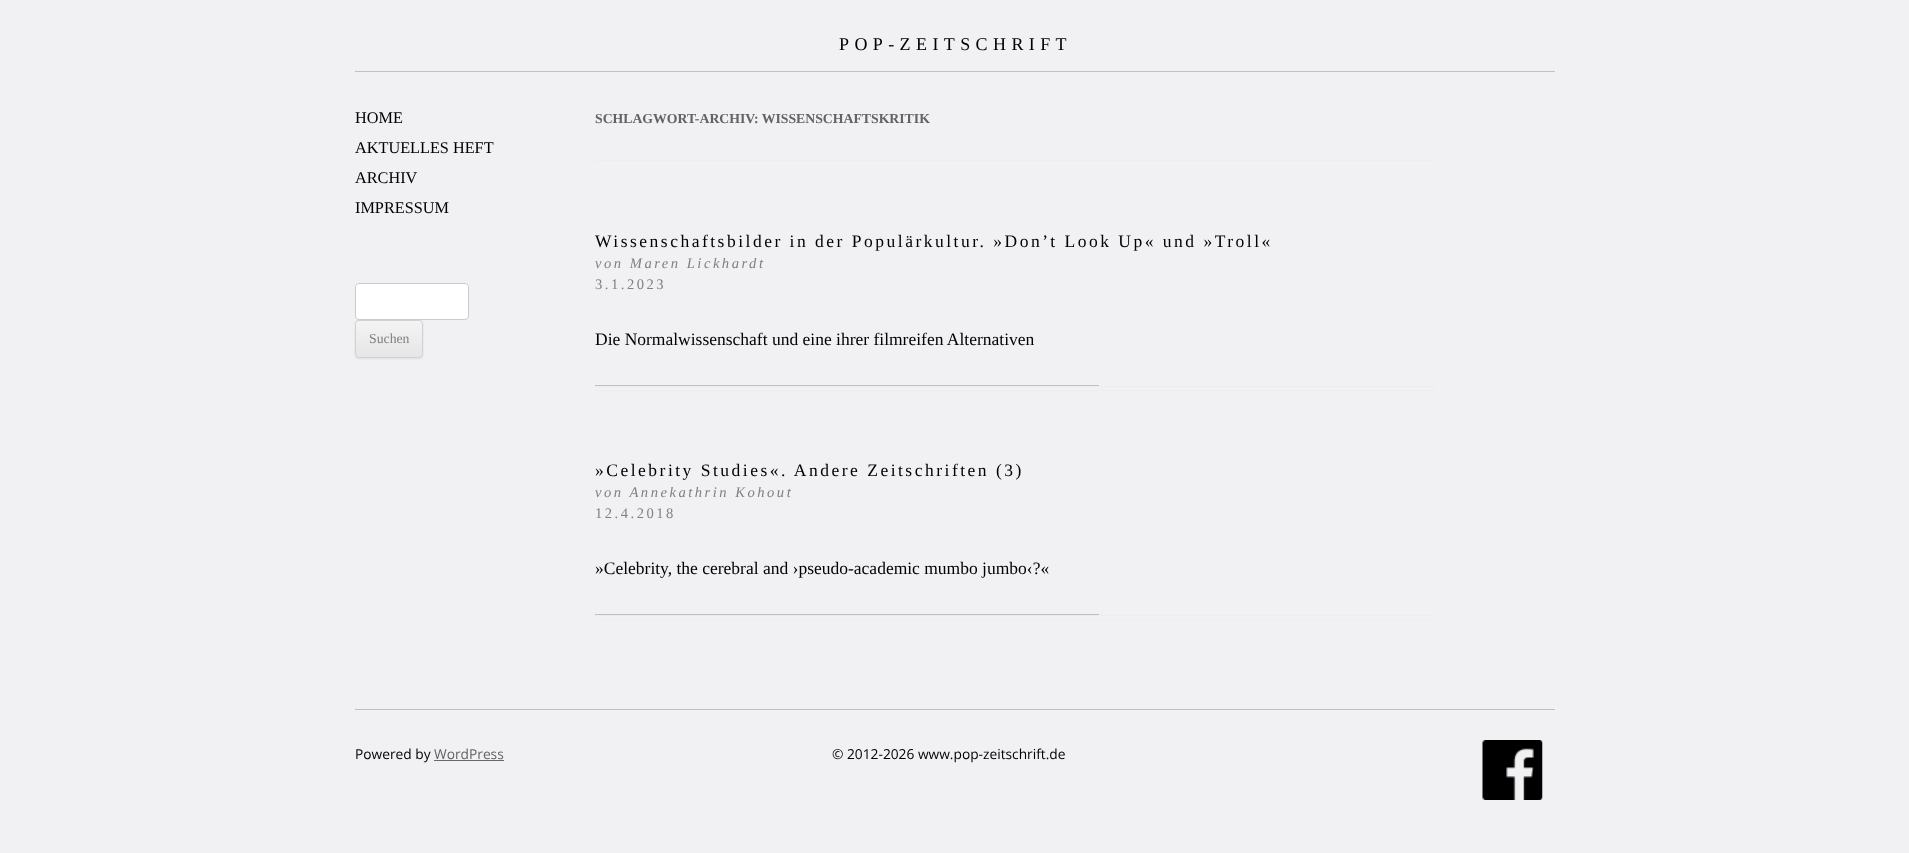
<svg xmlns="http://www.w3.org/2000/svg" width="1909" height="853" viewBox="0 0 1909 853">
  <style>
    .t1 { font: 18px Liberation Serif; letter-spacing: 5.4px; fill: #000; }
    .t2 { font: 16.25px Liberation Serif; fill: #000; }
    .t3 { font: 13.75px Liberation Serif; fill: #808080; }
    .t4 { font: bold 13.75px Liberation Serif; fill: #636363; }
    .t5 { font: 17.5px Liberation Serif; letter-spacing: 2.5px; fill: #000; }
    .t6 { font: italic 14.6px Liberation Serif; letter-spacing: 2.5px; fill: #808080; }
    .t7 { font: 14.6px Liberation Serif; letter-spacing: 2.5px; fill: #808080; }
    .t8 { font: 17.5px Liberation Serif; fill: #000; }
    .t9 { font: 13.75px Open Sans; fill: #000; }
    .t10 { font: 13.75px Open Sans; fill: #636363; }
  </style>
  <defs>
    <clipPath id="clip1"><rect x="355" y="320" width="68" height="38" rx="4"/></clipPath>
    <linearGradient id="g1" gradientUnits="userSpaceOnUse" x1="389" y1="321" x2="389" y2="356"><stop offset="0" stop-color="#f4f4f4"/><stop offset="1" stop-color="#e6e6e6"/></linearGradient>
  </defs>
  <rect width="100%" height="100%" fill="#f1f0f2"/>
  <rect x="355" y="71" width="1200" height="1" fill="#c0c0c0"/>
  <text x="839" y="50" class="t1">POP-ZEITSCHRIFT</text>
  <text x="355" y="123" class="t2">HOME</text>
  <text x="355" y="153" class="t2">AKTUELLES HEFT</text>
  <text x="355" y="183" class="t2">ARCHIV</text>
  <text x="355" y="213" class="t2">IMPRESSUM</text>
  <rect x="355.5" y="283.5" width="113" height="36" rx="3.5" fill="#fff" stroke="#ccc"/>
  <rect x="355" y="321" width="68" height="38" rx="4" fill="#4040401a" filter="blur(1px)"/>
  <rect x="355" y="320" width="68" height="38" rx="4" fill="#e6e6e6"/>
  <g clip-path="url(#clip1)">
    <rect x="355" y="321" width="68" height="35" fill="url(#g1)"/>
  </g>
  <rect x="355.5" y="320.5" width="67" height="37" rx="3.5" fill="none" stroke="#d2d2d2"/>
  <text x="369" y="343" class="t3">Suchen</text>
  <rect x="595" y="160" width="840" height="1" fill="#ededed"/>
  <text x="595" y="123" class="t4">SCHLAGWORT-ARCHIV: WISSENSCHAFTSKRITIK</text>
  <rect x="595" y="386" width="840" height="1" fill="#ededed"/>
  <rect x="595" y="390" width="840" height="1" fill="#ededed"/>
  <text x="595" y="247" class="t5">Wissenschaftsbilder in der Populärkultur. »Don’t Look Up« und »Troll«</text>
  <text x="595" y="268" class="t6">von Maren Lickhardt</text>
  <text x="595" y="289" class="t7">3.1.2023</text>
  <text x="595" y="345" class="t8">Die Normalwissenschaft und eine ihrer filmreifen Alternativen</text>
  <rect x="595" y="385" width="504" height="1" fill="#c0c0c0"/>
  <rect x="595" y="615" width="840" height="1" fill="#ededed"/>
  <rect x="595" y="619" width="840" height="1" fill="#ededed"/>
  <text x="595" y="476" class="t5">»Celebrity Studies«. Andere Zeitschriften (3)</text>
  <text x="595" y="497" class="t6">von Annekathrin Kohout</text>
  <text x="595" y="518" class="t7">12.4.2018</text>
  <text x="595" y="574" class="t8">»Celebrity, the cerebral and ›pseudo-academic mumbo jumbo‹?«</text>
  <rect x="595" y="614" width="504" height="1" fill="#c0c0c0"/>
  <rect x="355" y="709" width="1200" height="1" fill="#c0c0c0"/>
  <text x="355" y="759" class="t9">Powered by</text>
  <text x="434" y="759" class="t10">WordPress</text>
  <rect x="434" y="760" width="70" height="1" fill="#686868"/>
  <text x="832" y="759" class="t9">© 2012-2026 www.pop-zeitschrift.de</text>
  <image x="1482" y="740" width="61" height="60" href="images/1.png"/>
</svg>
